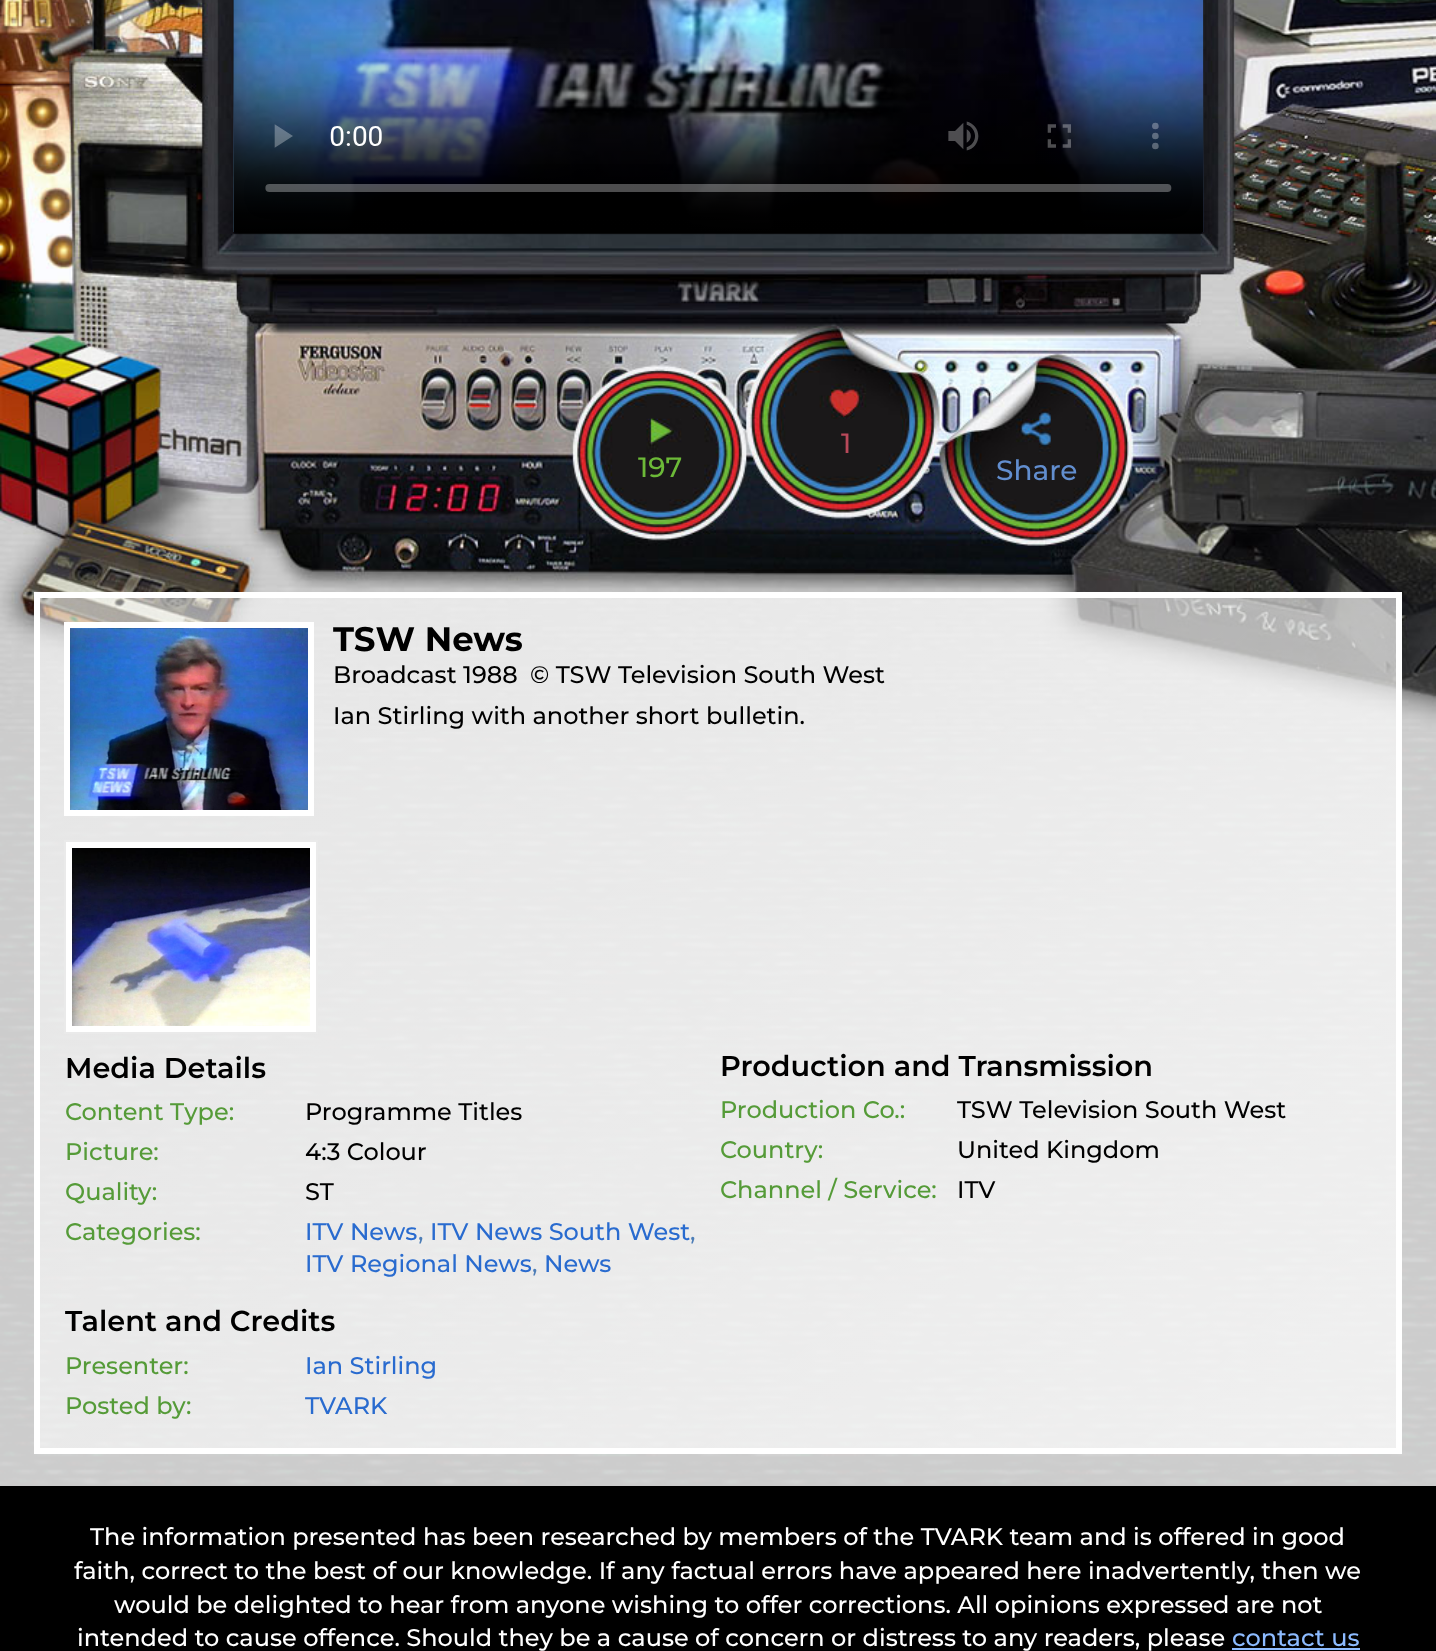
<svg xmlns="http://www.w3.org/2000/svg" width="1436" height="1651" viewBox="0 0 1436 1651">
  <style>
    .t1 { font: 500 28px Montserrat; fill: #b8495a; }
    .t2 { font: 500 28px Montserrat; fill: #6cb938; }
    .t3 { font: 500 28px Montserrat; fill: #628ecf; }
    .t4 { font: bold 34px Montserrat; fill: #000; }
    .t5 { font: 500 24px Montserrat; fill: #000; }
    .t6 { font: 600 28.75px Montserrat; fill: #000; }
    .t7 { font: 500 24px Montserrat; fill: #559b38; }
    .t8 { font: 500 24px Montserrat; fill: #296bcf; }
    .t9 { font: 500 24px Montserrat; fill: #4e7eb7; }
    .t10 { font: 500 24px Montserrat; fill: #fff; }
    .t11 { font: 500 24px Montserrat; fill: #8dbbff; }
  </style>
  <defs>
    <linearGradient id="g1" gradientUnits="userSpaceOnUse" x1="166" y1="472" x2="1270" y2="1575"><stop offset="0" stop-color="#fff" stop-opacity="0.5"/><stop offset="1" stop-color="#fff" stop-opacity="0.7"/></linearGradient>
  </defs>
  <rect width="100%" height="100%" fill="#fff"/>
  <image x="0" y="732" width="1436" height="754" href="images/1.png"/>
  <image x="0" y="0" width="1436" height="732" href="images/2.png"/>
  <text x="841" y="453" class="t1">1</text>
  <text x="638" y="477" class="t2">197</text>
  <text x="996" y="480" class="t3">Share</text>
  <rect x="40" y="598" width="1356" height="850" fill="url(#g1)"/>
  <rect x="37" y="595" width="1362" height="856" fill="none" stroke="#fff" stroke-width="6"/>
  <image x="233" y="0" width="971" height="232" href="images/3.png"/>
  <image x="70" y="628" width="238" height="182" href="images/4.png"/>
  <rect x="67" y="625" width="244" height="188" fill="none" stroke="#fff" stroke-width="6"/>
  <text x="333" y="651" class="t4">TSW News</text>
  <text x="333" y="683" class="t5">Broadcast 1988</text>
  <text x="530" y="683" class="t5">© TSW Television South West</text>
  <text x="333" y="724" class="t5">Ian Stirling with another short bulletin.</text>
  <rect x="65" y="841" width="252" height="192" fill="#fff" stroke="#eaeaea" stroke-width="2"/>
  <image x="72" y="848" width="238" height="178" href="images/5.png"/>
  <text x="65" y="1078" class="t6">Media Details</text>
  <text x="65" y="1120" class="t7">Content Type:</text>
  <text x="305" y="1120" class="t5">Programme Titles</text>
  <text x="65" y="1160" class="t7">Picture:</text>
  <text x="305" y="1160" class="t5">4:3 Colour</text>
  <text x="65" y="1200" class="t7">Quality:</text>
  <text x="305" y="1200" class="t5">ST</text>
  <text x="65" y="1240" class="t7">Categories:</text>
  <text x="305" y="1240" class="t8">ITV News</text>
  <text x="418" y="1240" class="t9">,</text>
  <text x="430" y="1240" class="t8">ITV News South West</text>
  <text x="690" y="1240" class="t9">,</text>
  <text x="305" y="1272" class="t8">ITV Regional News</text>
  <text x="532" y="1272" class="t9">,</text>
  <text x="544" y="1272" class="t8">News</text>
  <text x="720" y="1076" class="t6">Production and Transmission</text>
  <text x="720" y="1118" class="t7">Production Co.:</text>
  <text x="957" y="1118" class="t5">TSW Television South West</text>
  <text x="720" y="1158" class="t7">Country:</text>
  <text x="957" y="1158" class="t5">United Kingdom</text>
  <text x="720" y="1198" class="t7">Channel / Service:</text>
  <text x="957" y="1198" class="t5">ITV</text>
  <text x="65" y="1331" class="t6">Talent and Credits</text>
  <text x="65" y="1374" class="t7">Presenter:</text>
  <text x="305" y="1374" class="t8">Ian Stirling</text>
  <text x="65" y="1414" class="t7">Posted by:</text>
  <text x="305" y="1414" class="t8">TVARK</text>
  <rect x="0" y="1486" width="1436" height="165" fill="#000"/>
  <text x="90" y="1545" class="t10">The information presented has been researched by members of the TVARK team and is offered in good</text>
  <text x="74" y="1579" class="t10">faith, correct to the best of our knowledge. If any factual errors have appeared here inadvertently, then we</text>
  <text x="114" y="1613" class="t10">would be delighted to hear from anyone wishing to offer corrections. All opinions expressed are not</text>
  <text x="77" y="1646" class="t10">intended to cause offence. Should they be a cause of concern or distress to any readers, please</text>
  <text x="1232" y="1646" class="t11">contact us</text>
  <rect x="1232" y="1648" width="128" height="2" fill="#8dbbff"/>
</svg>
